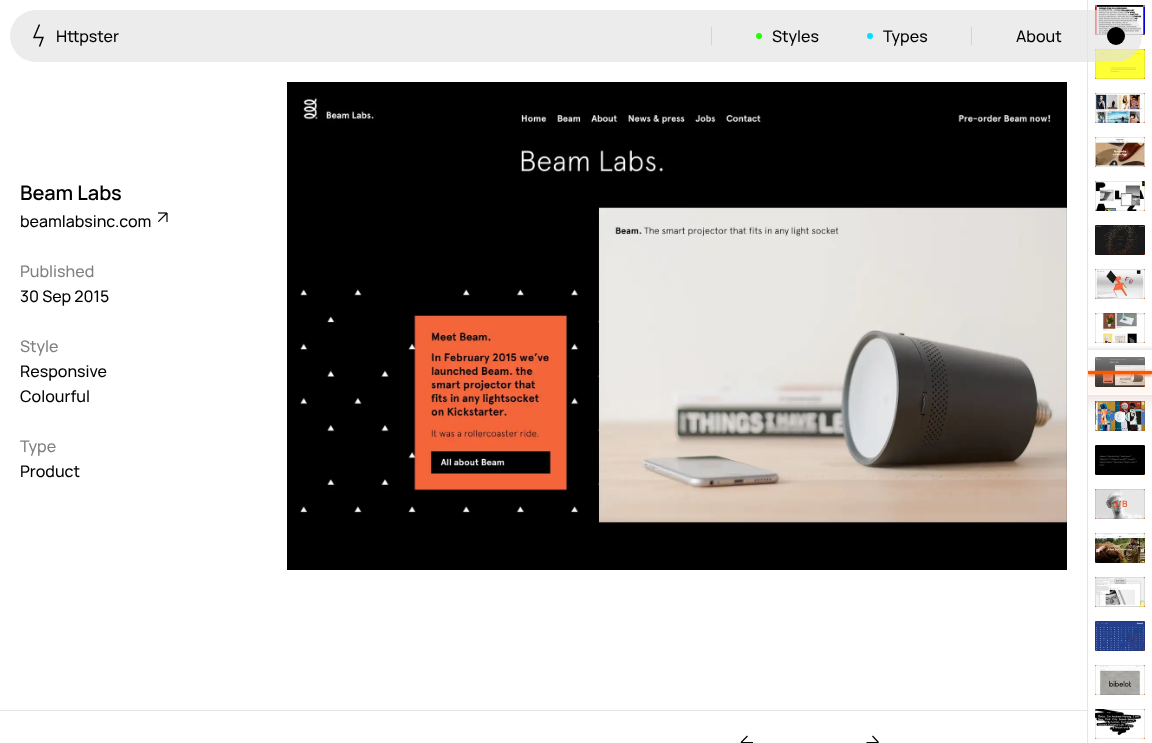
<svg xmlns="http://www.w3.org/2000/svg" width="1152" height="743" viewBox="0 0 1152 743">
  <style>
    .t1 { font: 200 16px 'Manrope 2'; fill: #000; }
    .t2 { font: 200 20px Manrope; fill: #000; }
    .t3 { font: 200 16px 'Manrope 2'; fill: #808080; }
  </style>
  <rect width="100%" height="100%" fill="#fff"/>
  <rect x="1087" y="0" width="1" height="743" fill="#e5e5e5"/>
  <rect x="1095" y="5" width="50" height="30" fill="#ff5601"/>
  <image x="1095" y="5" width="50" height="30" href="images/3.png"/>
  <rect x="1095.5" y="5.5" width="49" height="29" fill="none" stroke="#00000014"/>
  <rect x="1095" y="49" width="50" height="30" fill="#ff5601"/>
  <image x="1095" y="49" width="50" height="30" href="images/4.png"/>
  <rect x="1095.5" y="49.5" width="49" height="29" fill="none" stroke="#00000014"/>
  <rect x="10" y="10" width="1132" height="52" rx="26" fill="#e2e2e2ab"/>
  <path d="M39.5 24.5L34 37.5H43L39.5 46.5" fill="none" stroke="#000" stroke-width="1.4"/>
  <text x="56" y="42" class="t1">Httpster</text>
  <rect x="711" y="27" width="1" height="18" fill="#d4d4d4"/>
  <circle cx="759" cy="36" r="3" fill="#24ff00"/>
  <text x="772" y="42" class="t1">Styles</text>
  <circle cx="870" cy="36" r="3" fill="#00e0ff"/>
  <text x="883" y="42" class="t1">Types</text>
  <rect x="971" y="27" width="1" height="18" fill="#d4d4d4"/>
  <text x="1016" y="42" class="t1">About</text>
  <circle cx="1116" cy="36" r="9" fill="#000"/>
  <text x="20" y="200" class="t2">Beam Labs</text>
  <text x="20" y="227" class="t1">beamlabsinc.com</text>
  <image x="158" y="212" width="10" height="10" href="images/1.png"/>
  <image x="287" y="82" width="780" height="488" href="images/2.png"/>
  <rect x="287.5" y="82.5" width="779" height="487" fill="none" stroke="#00000014"/>
  <text x="20" y="277" class="t3">Published</text>
  <text x="20" y="302" class="t1">30 Sep 2015</text>
  <text x="20" y="352" class="t3">Style</text>
  <text x="20" y="377" class="t1">Responsive</text>
  <text x="20" y="402" class="t1">Colourful</text>
  <text x="20" y="452" class="t3">Type</text>
  <text x="20" y="477" class="t1">Product</text>
  <rect x="1095" y="93" width="50" height="30" fill="#ff5601"/>
  <image x="1095" y="93" width="50" height="30" href="images/5.png"/>
  <rect x="1095.5" y="93.5" width="49" height="29" fill="none" stroke="#00000014"/>
  <rect x="1095" y="137" width="50" height="30" fill="#ff5601"/>
  <image x="1095" y="137" width="50" height="30" href="images/6.png"/>
  <rect x="1095.5" y="137.5" width="49" height="29" fill="none" stroke="#00000014"/>
  <rect x="1095" y="181" width="50" height="30" fill="#ff5601"/>
  <image x="1095" y="181" width="50" height="30" href="images/7.png"/>
  <rect x="1095.5" y="181.5" width="49" height="29" fill="none" stroke="#00000014"/>
  <rect x="1095" y="225" width="50" height="30" fill="#ff5601"/>
  <image x="1095" y="225" width="50" height="30" href="images/8.png"/>
  <rect x="1095.5" y="225.5" width="49" height="29" fill="none" stroke="#00000014"/>
  <rect x="1095" y="269" width="50" height="30" fill="#ff5601"/>
  <image x="1095" y="269" width="50" height="30" href="images/9.png"/>
  <rect x="1095.5" y="269.5" width="49" height="29" fill="none" stroke="#00000014"/>
  <rect x="1095" y="313" width="50" height="30" fill="#ff5601"/>
  <image x="1095" y="313" width="50" height="30" href="images/10.png"/>
  <rect x="1095.5" y="313.5" width="49" height="29" fill="none" stroke="#00000014"/>
  <rect x="1095" y="357" width="50" height="30" fill="#ff671a"/>
  <image x="1095" y="357" width="50" height="30" href="images/11.png"/>
  <rect x="1095.5" y="357.5" width="49" height="29" fill="none" stroke="#1a1a1a14"/>
  <rect x="1095" y="401" width="50" height="30" fill="#ff5601"/>
  <image x="1095" y="401" width="50" height="30" href="images/12.png"/>
  <rect x="1095.5" y="401.5" width="49" height="29" fill="none" stroke="#00000014"/>
  <rect x="1095" y="445" width="50" height="30" fill="#ff5601"/>
  <image x="1095" y="445" width="50" height="30" href="images/13.png"/>
  <rect x="1095.5" y="445.5" width="49" height="29" fill="none" stroke="#00000014"/>
  <rect x="1095" y="489" width="50" height="30" fill="#ff5601"/>
  <image x="1095" y="489" width="50" height="30" href="images/14.png"/>
  <rect x="1095.5" y="489.5" width="49" height="29" fill="none" stroke="#00000014"/>
  <rect x="1095" y="533" width="50" height="30" fill="#ff5601"/>
  <image x="1095" y="533" width="50" height="30" href="images/15.png"/>
  <rect x="1095.5" y="533.5" width="49" height="29" fill="none" stroke="#00000014"/>
  <rect x="1095" y="577" width="50" height="30" fill="#ff5601"/>
  <image x="1095" y="577" width="50" height="30" href="images/16.png"/>
  <rect x="1095.5" y="577.5" width="49" height="29" fill="none" stroke="#00000014"/>
  <rect x="1095" y="621" width="50" height="30" fill="#ff5601"/>
  <image x="1095" y="621" width="50" height="30" href="images/17.png"/>
  <rect x="1095.5" y="621.5" width="49" height="29" fill="none" stroke="#00000014"/>
  <rect x="1095" y="665" width="50" height="30" fill="#ff5601"/>
  <image x="1095" y="665" width="50" height="30" href="images/18.png"/>
  <rect x="1095.5" y="665.5" width="49" height="29" fill="none" stroke="#00000014"/>
  <rect x="1095" y="709" width="50" height="30" fill="#ff5601"/>
  <image x="1095" y="709" width="50" height="30" href="images/19.png"/>
  <rect x="1095.5" y="709.5" width="49" height="29" fill="none" stroke="#00000014"/>
  <image x="1088" y="346" width="64" height="66" href="images/20.png"/>
  <rect x="0" y="710" width="1087" height="1" fill="#e5e5e5"/>
  <path d="M747.5 736L741 742.5M741 742.5L747.5 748.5M741 742.5H753" fill="none" stroke="#000" stroke-width="1.2"/>
  <path d="M872.5 736L878.5 742.5M878.5 742.5L872.5 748.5M878.5 742.5H866.5" fill="none" stroke="#000" stroke-width="1.2"/>
</svg>
